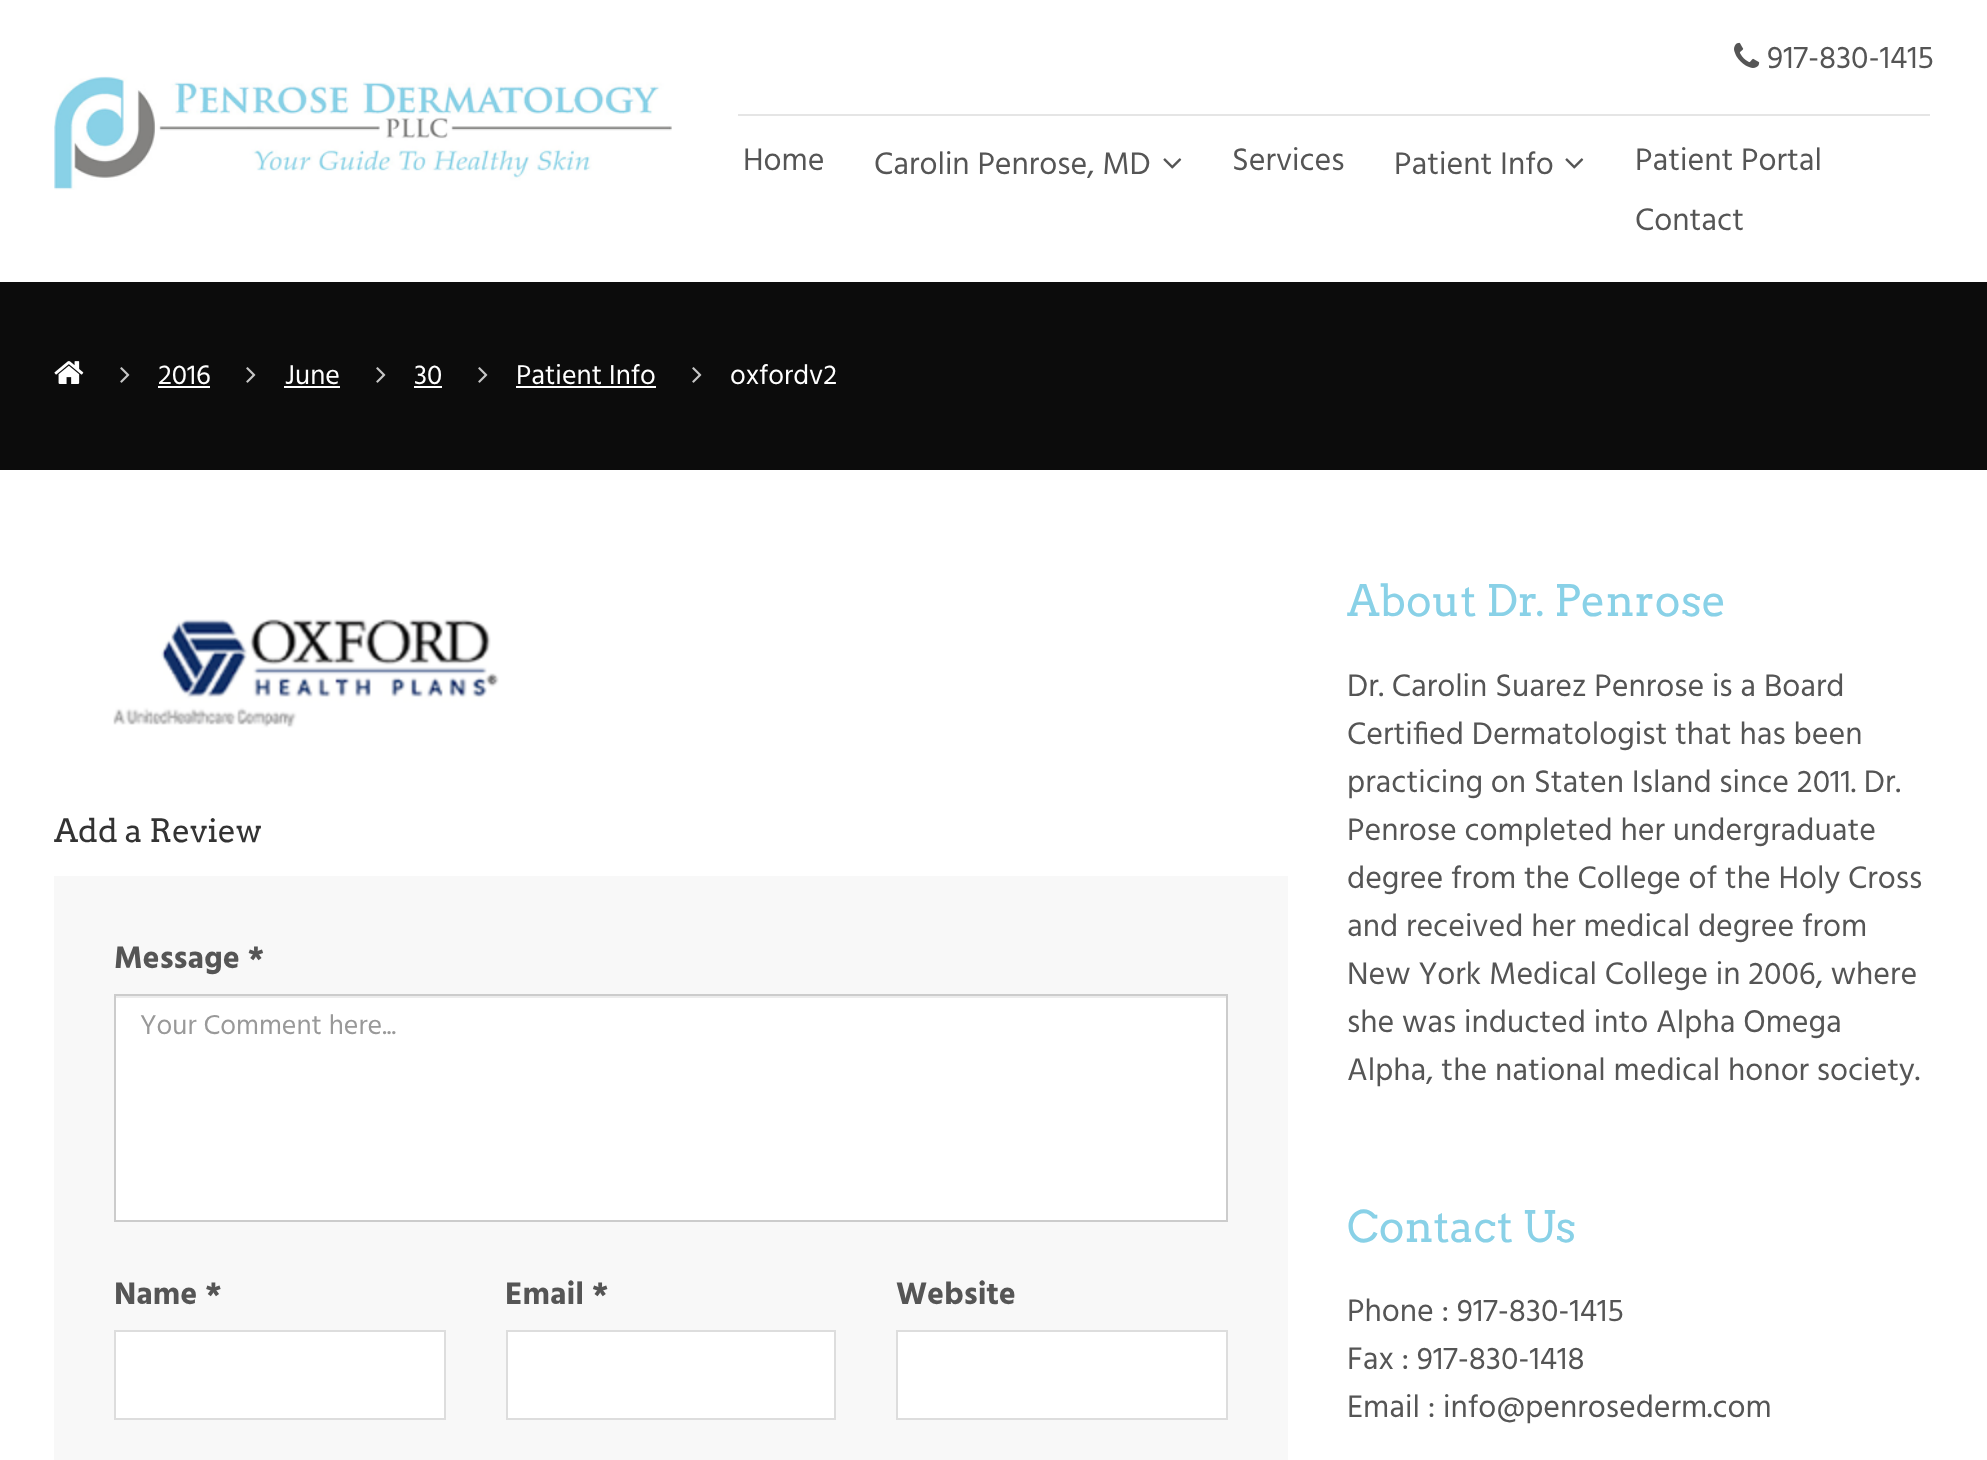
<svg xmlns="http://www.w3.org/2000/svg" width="1987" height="1460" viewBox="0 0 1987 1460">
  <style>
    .t1 { font: 32px Hind; fill: #555; }
    .t2 { font: 28px Hind; fill: #fff; }
    .t3 { font: 32px Arvo; fill: #333; }
    .t4 { font: bold 32px Hind; fill: #555; }
    .t5 { font: 28px Hind; fill: #999; }
    .t6 { font: 43.25px Arvo; fill: #89d1e7; }
  </style>
  <rect width="100%" height="100%" fill="#fff"/>
  <image x="54" y="76" width="618" height="114" href="images/1.png"/>
  <image x="1734" y="42" width="26" height="26" href="images/2.png"/>
  <text x="1767" y="68" class="t1">917-830-1415</text>
  <rect x="738" y="114" width="1192" height="2" fill="#e5e5e5"/>
  <text x="743" y="170" class="t1">Home</text>
  <text x="874" y="174" class="t1">Carolin Penrose, MD</text>
  <image x="1163" y="158" width="19" height="11" href="images/3.png"/>
  <text x="1232" y="170" class="t1">Services</text>
  <text x="1394" y="174" class="t1">Patient Info</text>
  <image x="1565" y="158" width="19" height="11" href="images/3.png"/>
  <text x="1635" y="170" class="t1">Patient Portal</text>
  <text x="1635" y="230" class="t1">Contact</text>
  <rect x="0" y="282" width="1987" height="188" fill="#0c0c0c"/>
  <image x="54" y="361" width="30" height="23" href="images/4.png"/>
  <image x="120" y="367" width="10" height="16" href="images/5.png"/>
  <text x="158" y="384" class="t2">2016</text>
  <rect x="158" y="386" width="52" height="2" fill="#fff"/>
  <image x="246" y="367" width="10" height="16" href="images/5.png"/>
  <text x="285" y="384" class="t2">June</text>
  <rect x="284" y="386" width="56" height="2" fill="#fff"/>
  <image x="376" y="367" width="10" height="16" href="images/5.png"/>
  <text x="414" y="384" class="t2">30</text>
  <rect x="414" y="386" width="28" height="2" fill="#fff"/>
  <image x="478" y="367" width="10" height="16" href="images/5.png"/>
  <text x="516" y="384" class="t2">Patient Info</text>
  <rect x="516" y="386" width="140" height="2" fill="#fff"/>
  <image x="692" y="367" width="10" height="16" href="images/5.png"/>
  <text x="730" y="384" class="t2">oxfordv2</text>
  <image x="113" y="619" width="386" height="109" href="images/6.png"/>
  <text x="54" y="842" class="t3">Add a Review</text>
  <rect x="54" y="876" width="1234" height="584" fill="#f8f8f8"/>
  <text x="114" y="968" class="t4">Message *</text>
  <rect x="116" y="998" width="1110" height="222" fill="#fff"/>
  <rect x="116" y="996" width="1110" height="2" fill="#ececec"/>
  <rect x="115" y="995" width="1112" height="226" fill="none" stroke="#ccc" stroke-width="2"/>
  <text x="140" y="1034" class="t5">Your Comment here...</text>
  <text x="114" y="1304" class="t4">Name *</text>
  <rect x="115" y="1331" width="330" height="88" fill="#fff" stroke="#ddd" stroke-width="2"/>
  <text x="505" y="1304" class="t4">Email *</text>
  <rect x="507" y="1331" width="328" height="88" fill="#fff" stroke="#ddd" stroke-width="2"/>
  <text x="896" y="1304" class="t4">Website</text>
  <rect x="897" y="1331" width="330" height="88" fill="#fff" stroke="#ddd" stroke-width="2"/>
  <text x="1347" y="616" class="t6">About Dr. Penrose</text>
  <text x="1347" y="696" class="t1">Dr. Carolin Suarez Penrose is a Board</text>
  <text x="1347" y="744" class="t1">Certified Dermatologist that has been</text>
  <text x="1347" y="792" class="t1">practicing on Staten Island since 2011. Dr.</text>
  <text x="1347" y="840" class="t1">Penrose completed her undergraduate</text>
  <text x="1347" y="888" class="t1">degree from the College of the Holy Cross</text>
  <text x="1347" y="936" class="t1">and received her medical degree from</text>
  <text x="1347" y="984" class="t1">New York Medical College in 2006, where</text>
  <text x="1347" y="1032" class="t1">she was inducted into Alpha Omega</text>
  <text x="1347" y="1080" class="t1">Alpha, the national medical honor society.</text>
  <text x="1347" y="1242" class="t6">Contact Us</text>
  <text x="1347" y="1321" class="t1">Phone : 917-830-1415</text>
  <text x="1347" y="1369" class="t1">Fax : 917-830-1418</text>
  <text x="1347" y="1417" class="t1">Email : info@penrosederm.com</text>
</svg>
